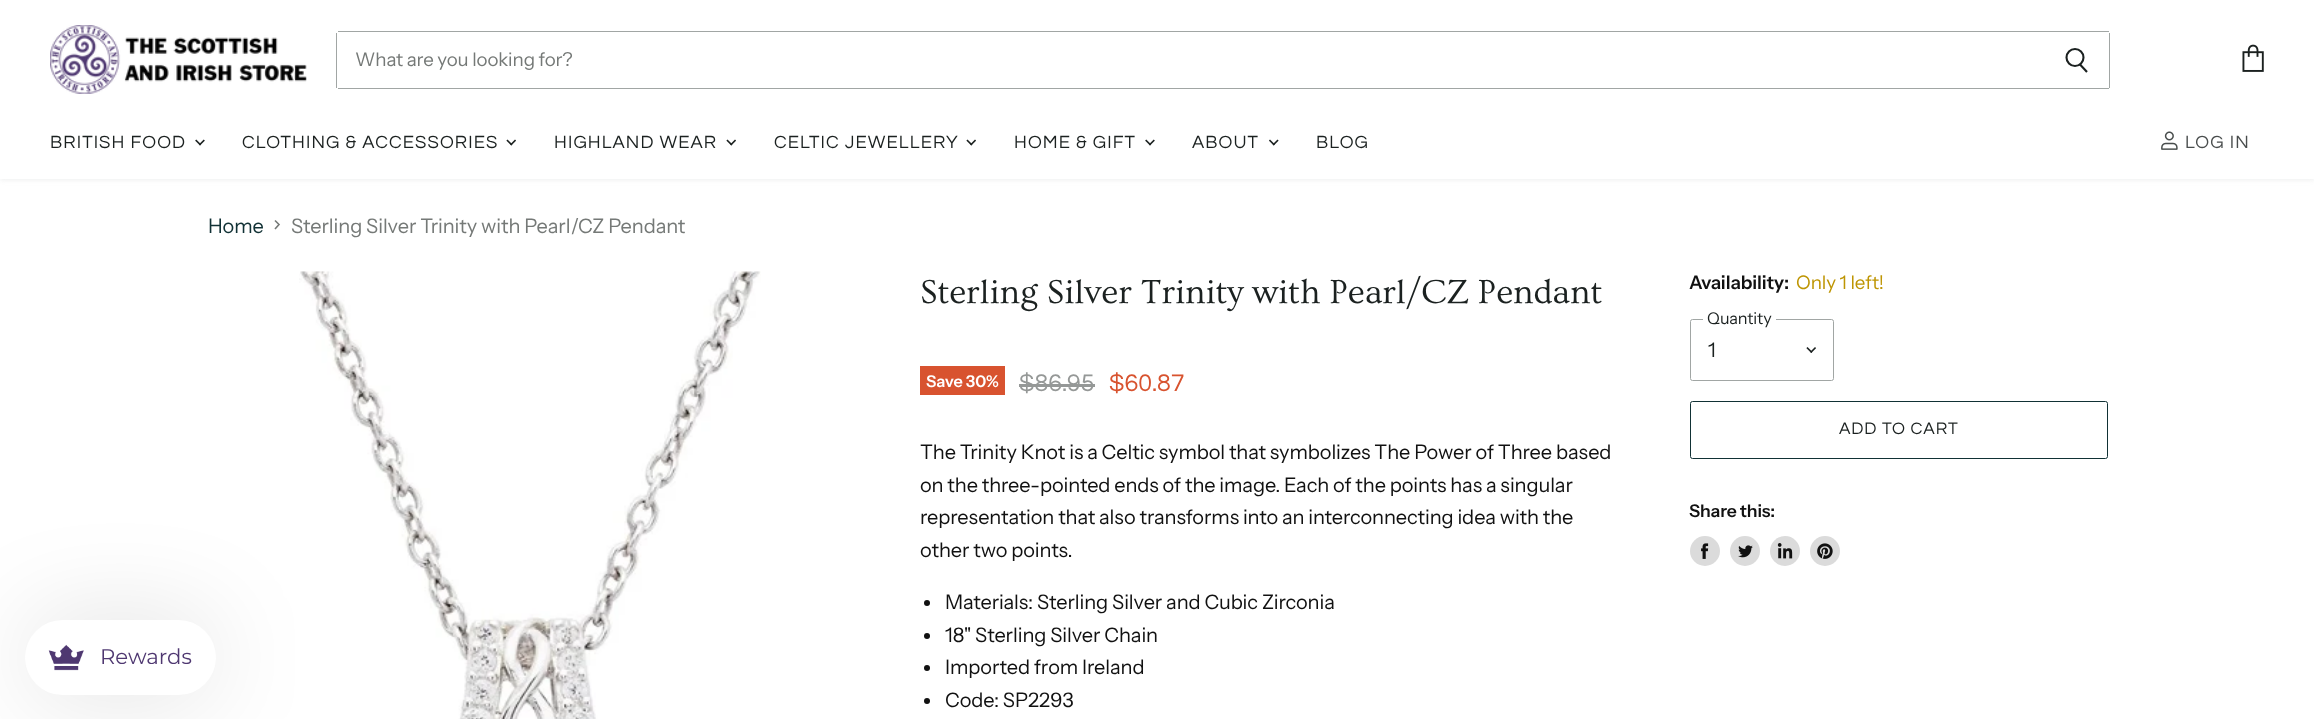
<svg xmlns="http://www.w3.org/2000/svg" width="2314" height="719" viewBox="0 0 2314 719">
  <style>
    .t1 { font: 18.75px Instrument Sans; letter-spacing: -0.1px; fill: #757977; }
    .t2 { font: 18.4px Questrial; letter-spacing: 1.1px; fill: #1b2120; }
    .t3 { font: 18.4px Questrial; letter-spacing: 1.1px; fill: #494d4d; }
    .t4 { font: 21.25px Montserrat; fill: #4f3871; }
    .t5 { font: 20px Instrument Sans; letter-spacing: -0.1px; fill: #113135; }
    .t6 { font: 20px Instrument Sans; letter-spacing: -0.1px; fill: #757977; }
    .t7 { font: 35px Ovo; fill: #1b2120; }
    .t8 { font: 600 16.25px Instrument Sans; fill: #fff; }
    .t9 { font: 25px Questrial; fill: #959897; }
    .t10 { font: 25px Questrial; fill: #d8532f; }
    .t11 { font: 20px Instrument Sans; letter-spacing: -0.1px; fill: #111; }
    .t12 { font: 600 18.75px Instrument Sans; letter-spacing: -0.1px; fill: #111; }
    .t13 { font: 18.75px Instrument Sans; letter-spacing: -0.1px; fill: #be9503; }
    .t14 { font: 16.25px Instrument Sans; letter-spacing: -0.1px; fill: #1b2120; }
    .t15 { font: 20px Instrument Sans; letter-spacing: -0.1px; fill: #1b2120; }
    .t16 { font: 17.25px Questrial; letter-spacing: 0.9px; fill: #1b2120; }
    .t17 { font: 600 17.5px Instrument Sans; letter-spacing: -0.1px; fill: #111; }
  </style>
  <rect width="100%" height="100%" fill="#fff"/>
  <rect x="0" y="1" width="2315" height="179" fill="#bac0be40" filter="blur(2.5px)"/>
  <rect x="0" y="0" width="2314" height="179" fill="#fff"/>
  <image x="50" y="25" width="257" height="69" href="images/1.png"/>
  <rect x="338" y="31" width="1771" height="1" fill="#a1a6a4"/>
  <rect x="2109" y="33" width="1" height="55" fill="#a1a6a4"/>
  <rect x="338" y="88" width="1771" height="1" fill="#a1a6a4"/>
  <path d="M2087 72L2080 64.5" fill="none" stroke="#1b2120" stroke-width="2.1"/>
  <circle cx="2075" cy="57.5" r="8.5" fill="none" stroke="#1b2120" stroke-width="2.1"/>
  <rect x="336" y="33" width="1" height="55" fill="#a1a6a4"/>
  <text x="355" y="66" class="t1">What are you looking for?</text>
  <image x="2242" y="44" width="22" height="28" href="images/2.png"/>
  <text x="50" y="148" class="t2">BRITISH FOOD</text>
  <image x="195" y="139" width="10" height="7" href="images/3.png"/>
  <text x="242" y="148" class="t2">CLOTHING &amp; ACCESSORIES</text>
  <image x="506" y="139" width="10" height="7" href="images/4.png"/>
  <text x="554" y="148" class="t2">HIGHLAND WEAR</text>
  <image x="726" y="139" width="10" height="7" href="images/4.png"/>
  <text x="774" y="148" class="t2">CELTIC JEWELLERY</text>
  <image x="966" y="139" width="10" height="7" href="images/4.png"/>
  <text x="1014" y="148" class="t2">HOME &amp; GIFT</text>
  <image x="1145" y="139" width="10" height="7" href="images/3.png"/>
  <text x="1192" y="148" class="t2">ABOUT</text>
  <image x="1269" y="139" width="10" height="7" href="images/5.png"/>
  <text x="1316" y="148" class="t2">BLOG</text>
  <image x="2161" y="131" width="17" height="19" href="images/6.png"/>
  <text x="2185" y="148" class="t3">LOG IN</text>
  <image x="299" y="271" width="462" height="448" href="images/8.png"/>
  <rect x="25" y="620" width="191" height="75" rx="37.5" fill="#0000001f" filter="blur(50px)"/>
  <rect x="25" y="620" width="191" height="75" rx="37.5" fill="#fff"/>
  <image x="48" y="644" width="36" height="27" href="images/7.png"/>
  <text x="100" y="664" class="t4">Rewards</text>
  <text x="208" y="233" class="t5">Home</text>
  <path d="M275 229L279 224.5L275 220.5" fill="none" stroke="#757977" stroke-width="1.6"/>
  <text x="291" y="233" class="t6">Sterling Silver Trinity with Pearl/CZ Pendant</text>
  <text x="920" y="303" class="t7">Sterling Silver Trinity with Pearl/CZ Pendant</text>
  <rect x="920" y="366" width="85" height="29" fill="#d8532f"/>
  <text x="926" y="387" class="t8">Save 30%</text>
  <text x="1019" y="391" class="t9">$86.95</text>
  <rect x="1019" y="384" width="76" height="3" fill="#959897"/>
  <text x="1109" y="391" class="t10">$60.87</text>
  <text x="920" y="459" class="t11">The Trinity Knot is a Celtic symbol that symbolizes The Power of Three based</text>
  <text x="920" y="492" class="t11">on the three-pointed ends of the image. Each of the points has a singular</text>
  <text x="920" y="524" class="t11">representation that also transforms into an interconnecting idea with the</text>
  <text x="920" y="557" class="t11">other two points.</text>
  <circle cx="927" cy="603" r="3" fill="#111"/>
  <text x="945" y="609" class="t11">Materials: Sterling Silver and Cubic Zirconia</text>
  <circle cx="927" cy="636" r="3" fill="#111"/>
  <text x="945" y="642" class="t11">18" Sterling Silver Chain</text>
  <circle cx="927" cy="668" r="3" fill="#111"/>
  <text x="945" y="674" class="t11">Imported from Ireland</text>
  <circle cx="927" cy="701" r="3" fill="#111"/>
  <text x="945" y="707" class="t11">Code: SP2293</text>
  <text x="1689" y="289" class="t12">Availability:</text>
  <text x="1796" y="289" class="t13">Only 1 left!</text>
  <rect x="1690.5" y="319.5" width="143" height="61" rx="2" fill="none" stroke="#a1a6a4"/>
  <rect x="1703" y="319" width="73" height="1" fill="#fff"/>
  <text x="1707" y="324" class="t14">Quantity</text>
  <text x="1708" y="357" class="t15">1</text>
  <image x="1806" y="347" width="10" height="6" href="images/9.png"/>
  <rect x="1690.5" y="401.5" width="417" height="57" rx="2" fill="none" stroke="#113135"/>
  <text x="1839" y="434" class="t16">ADD TO CART</text>
  <text x="1689" y="517" class="t17">Share this:</text>
  <circle cx="1705" cy="551" r="15" fill="#dbdbdb"/>
  <image x="1701" y="543" width="8" height="16" href="images/10.png"/>
  <circle cx="1745" cy="551" r="15" fill="#dbdbdb"/>
  <image x="1738" y="545" width="15" height="13" href="images/11.png"/>
  <circle cx="1785" cy="551" r="15" fill="#dbdbdb"/>
  <image x="1777" y="543" width="16" height="16" href="images/12.png"/>
  <circle cx="1825" cy="551" r="15" fill="#dbdbdb"/>
  <image x="1817" y="543" width="16" height="16" href="images/13.png"/>
</svg>
